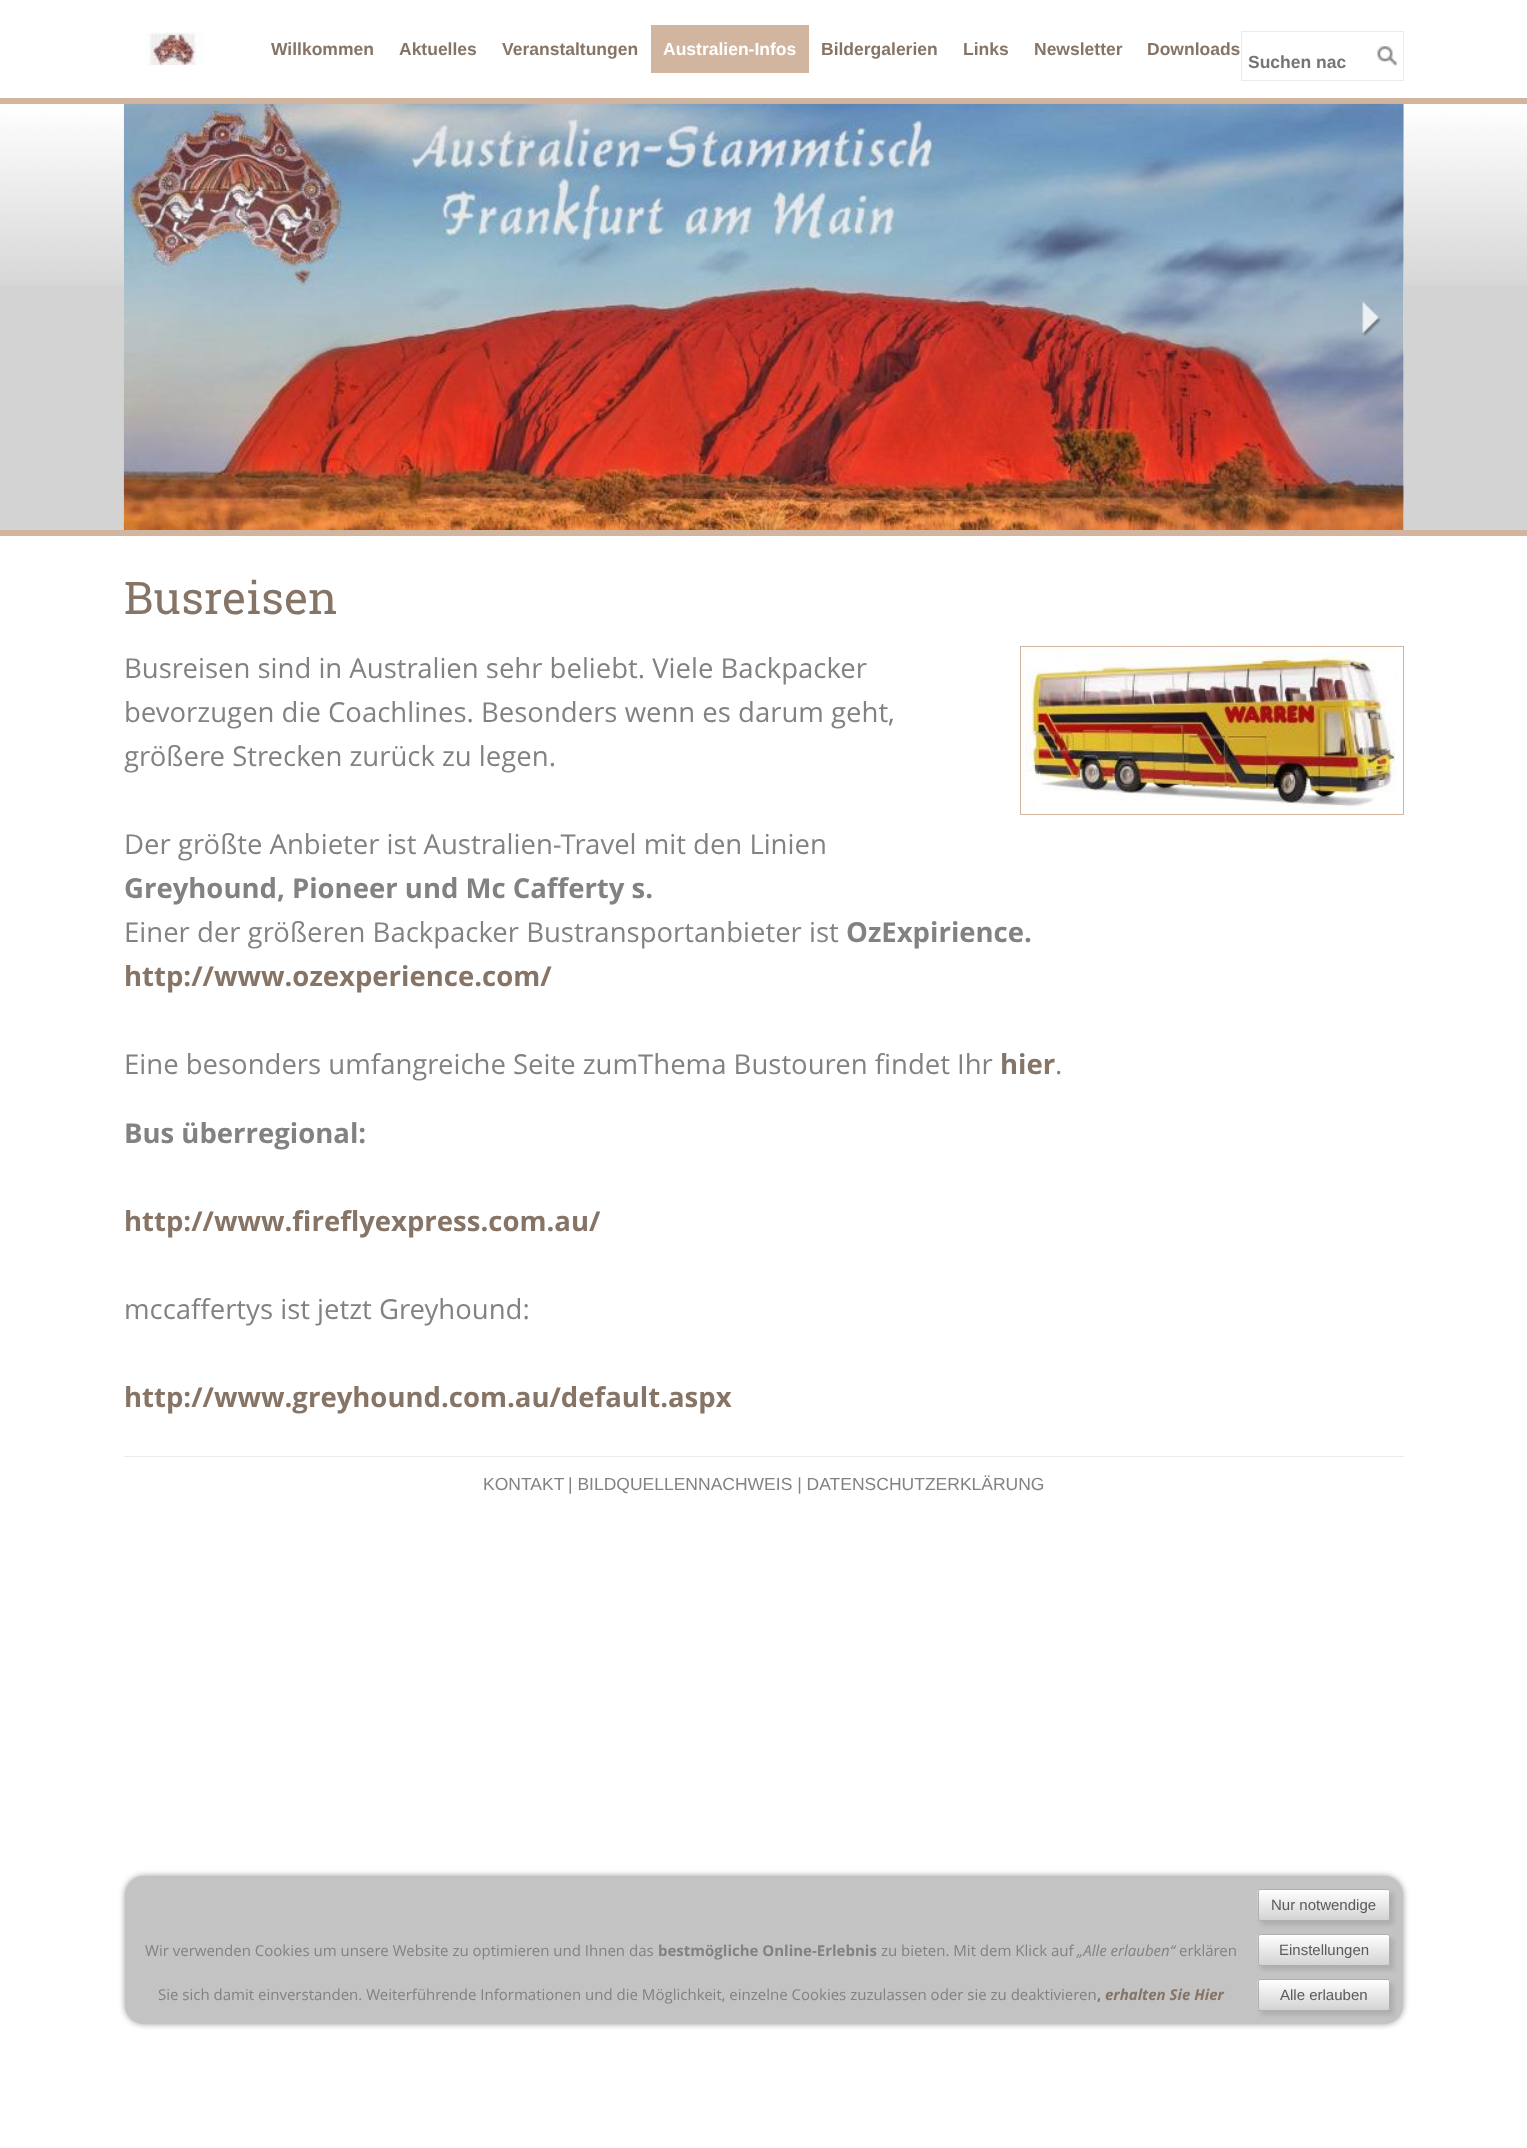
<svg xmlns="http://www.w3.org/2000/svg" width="1527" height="2148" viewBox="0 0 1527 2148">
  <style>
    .t1 { font: bold 17.5px Liberation Sans; fill: #867466; }
    .t2 { font: bold 17.5px Liberation Sans; fill: #fff; }
    .t3 { font: bold 17.5px Liberation Sans; fill: #757575; }
    .t4 { font: 45px Roboto Slab; fill: #867466; }
    .t5 { font: 27.5px Open Sans; fill: #828282; }
    .t6 { font: bold 27.5px Open Sans; fill: #828282; }
    .t7 { font: bold 27.5px Open Sans; fill: #867466; }
    .t8 { font: 17.5px Liberation Sans; fill: #828282; }
    .t9 { font: 15px Open Sans; fill: #828282; }
    .t10 { font: bold 15px Open Sans; fill: #828282; }
    .t11 { font: italic 15px Open Sans; fill: #828282; }
    .t12 { font: bold 15px Open Sans; fill: #867466; }
    .t13 { font: italic bold 15px Open Sans; fill: #867466; }
    .t14 { font: 15px Liberation Sans; fill: #5a5a5a; }
  </style>
  <rect width="100%" height="100%" fill="#fff"/>
  <image x="145" y="32" width="59" height="33" href="images/1.png"/>
  <text x="271" y="55" class="t1">Willkommen</text>
  <text x="399" y="55" class="t1">Aktuelles</text>
  <text x="502" y="55" class="t1">Veranstaltungen</text>
  <rect x="651" y="25" width="158" height="48" fill="#d1b59f"/>
  <text x="663" y="55" class="t2">Australien-Infos</text>
  <text x="821" y="55" class="t1">Bildergalerien</text>
  <text x="963" y="55" class="t1">Links</text>
  <text x="1034" y="55" class="t1">Newsletter</text>
  <text x="1147" y="55" class="t1">Downloads</text>
  <rect x="1241.5" y="31.5" width="162" height="49" fill="none" stroke="#ebebeb"/>
  <text x="1248" y="68" class="t3">Suchen nac</text>
  <image x="1377" y="46" width="21" height="20" href="images/2.png"/>
  <rect x="0" y="285" width="1527" height="245" fill="#d3d3d3"/>
  <image x="0" y="104" width="1527" height="181" href="images/3.png"/>
  <rect x="0" y="98" width="1527" height="6" fill="#d1b59f"/>
  <rect x="0" y="530" width="1527" height="6" fill="#d1b59f"/>
  <rect x="1403" y="115" width="1" height="415" fill="#fff"/>
  <image x="123" y="103" width="1281" height="427" href="images/4.png"/>
  <image x="1362" y="301" width="19" height="36" href="images/5.png"/>
  <text x="124" y="614" class="t4">Busreisen</text>
  <text x="124" y="678" class="t5">Busreisen sind in Australien sehr beliebt. Viele Backpacker</text>
  <text x="124" y="722" class="t5">bevorzugen die Coachlines. Besonders wenn es darum geht,</text>
  <text x="124" y="766" class="t5">größere Strecken zurück zu legen.</text>
  <text x="124" y="854" class="t5">Der größte Anbieter ist Australien-Travel mit den Linien</text>
  <text x="124" y="898" class="t6">Greyhound, Pioneer und Mc Cafferty s.</text>
  <text x="124" y="942" class="t5">Einer der größeren Backpacker Bustransportanbieter ist</text>
  <text x="846" y="942" class="t6">OzExpirience.</text>
  <text x="124" y="986" class="t7">http://www.ozexperience.com/</text>
  <text x="124" y="1074" class="t5">Eine besonders umfangreiche Seite zumThema Bustouren findet Ihr</text>
  <text x="1000" y="1074" class="t7">hier</text>
  <text x="1055" y="1074" class="t5">.</text>
  <rect x="1020.5" y="646.5" width="383" height="168" fill="none" stroke="#d1b59f"/>
  <image x="1025" y="651" width="374" height="159" href="images/6.png"/>
  <text x="124" y="1143" class="t6">Bus überregional:</text>
  <text x="124" y="1231" class="t7">http://www.fireflyexpress.com.au/</text>
  <text x="124" y="1319" class="t5">mccaffertys ist jetzt Greyhound:</text>
  <text x="124" y="1407" class="t7">http://www.greyhound.com.au/default.aspx</text>
  <rect x="124" y="1456" width="1280" height="1" fill="#ebebeb"/>
  <text x="483" y="1490" class="t8">KONTAKT</text>
  <text x="568" y="1490" class="t8">| BILDQUELLENNACHWEIS | DATENSCHUTZERKLÄRUNG</text>
  <rect x="125" y="1876" width="1278" height="148" rx="19" fill="#00000066" filter="blur(3px)"/>
  <rect x="125" y="1876" width="1278" height="148" rx="19" fill="#c3c3c3"/>
  <text x="145" y="1956" class="t9">Wir verwenden Cookies um unsere Website zu optimieren und Ihnen das</text>
  <text x="658" y="1956" class="t10">bestmögliche Online-Erlebnis</text>
  <text x="881" y="1956" class="t9">zu bieten. Mit dem Klick auf</text>
  <text x="1077" y="1956" class="t11">„Alle erlauben“</text>
  <text x="1179" y="1956" class="t9">erklären</text>
  <text x="158" y="2000" class="t9">Sie sich damit einverstanden. Weiterführende Informationen und die Möglichkeit, einzelne Cookies zuzulassen oder sie zu deaktivieren</text>
  <text x="1097" y="2000" class="t12">,</text>
  <text x="1105" y="2000" class="t13">erhalten Sie Hier</text>
  <rect x="1261" y="1893" width="133" height="32" rx="2.5" fill="#0000001a" filter="blur(2px)"/>
  <image x="1257" y="1890" width="133" height="30" href="images/7.png"/>
  <rect x="1258.5" y="1889.5" width="131" height="31" rx="2" fill="none" stroke="#afafaf"/>
  <text x="1271" y="1910" class="t14">Nur notwendige</text>
  <rect x="1261" y="1938" width="133" height="32" rx="2.5" fill="#0000001a" filter="blur(2px)"/>
  <image x="1257" y="1935" width="133" height="30" href="images/7.png"/>
  <rect x="1258.5" y="1934.5" width="131" height="31" rx="2" fill="none" stroke="#afafaf"/>
  <text x="1279" y="1955" class="t14">Einstellungen</text>
  <rect x="1261" y="1983" width="133" height="32" rx="2.5" fill="#0000001a" filter="blur(2px)"/>
  <image x="1257" y="1980" width="133" height="30" href="images/7.png"/>
  <rect x="1258.5" y="1979.5" width="131" height="31" rx="2" fill="none" stroke="#afafaf"/>
  <text x="1280" y="2000" class="t14">Alle erlauben</text>
</svg>
